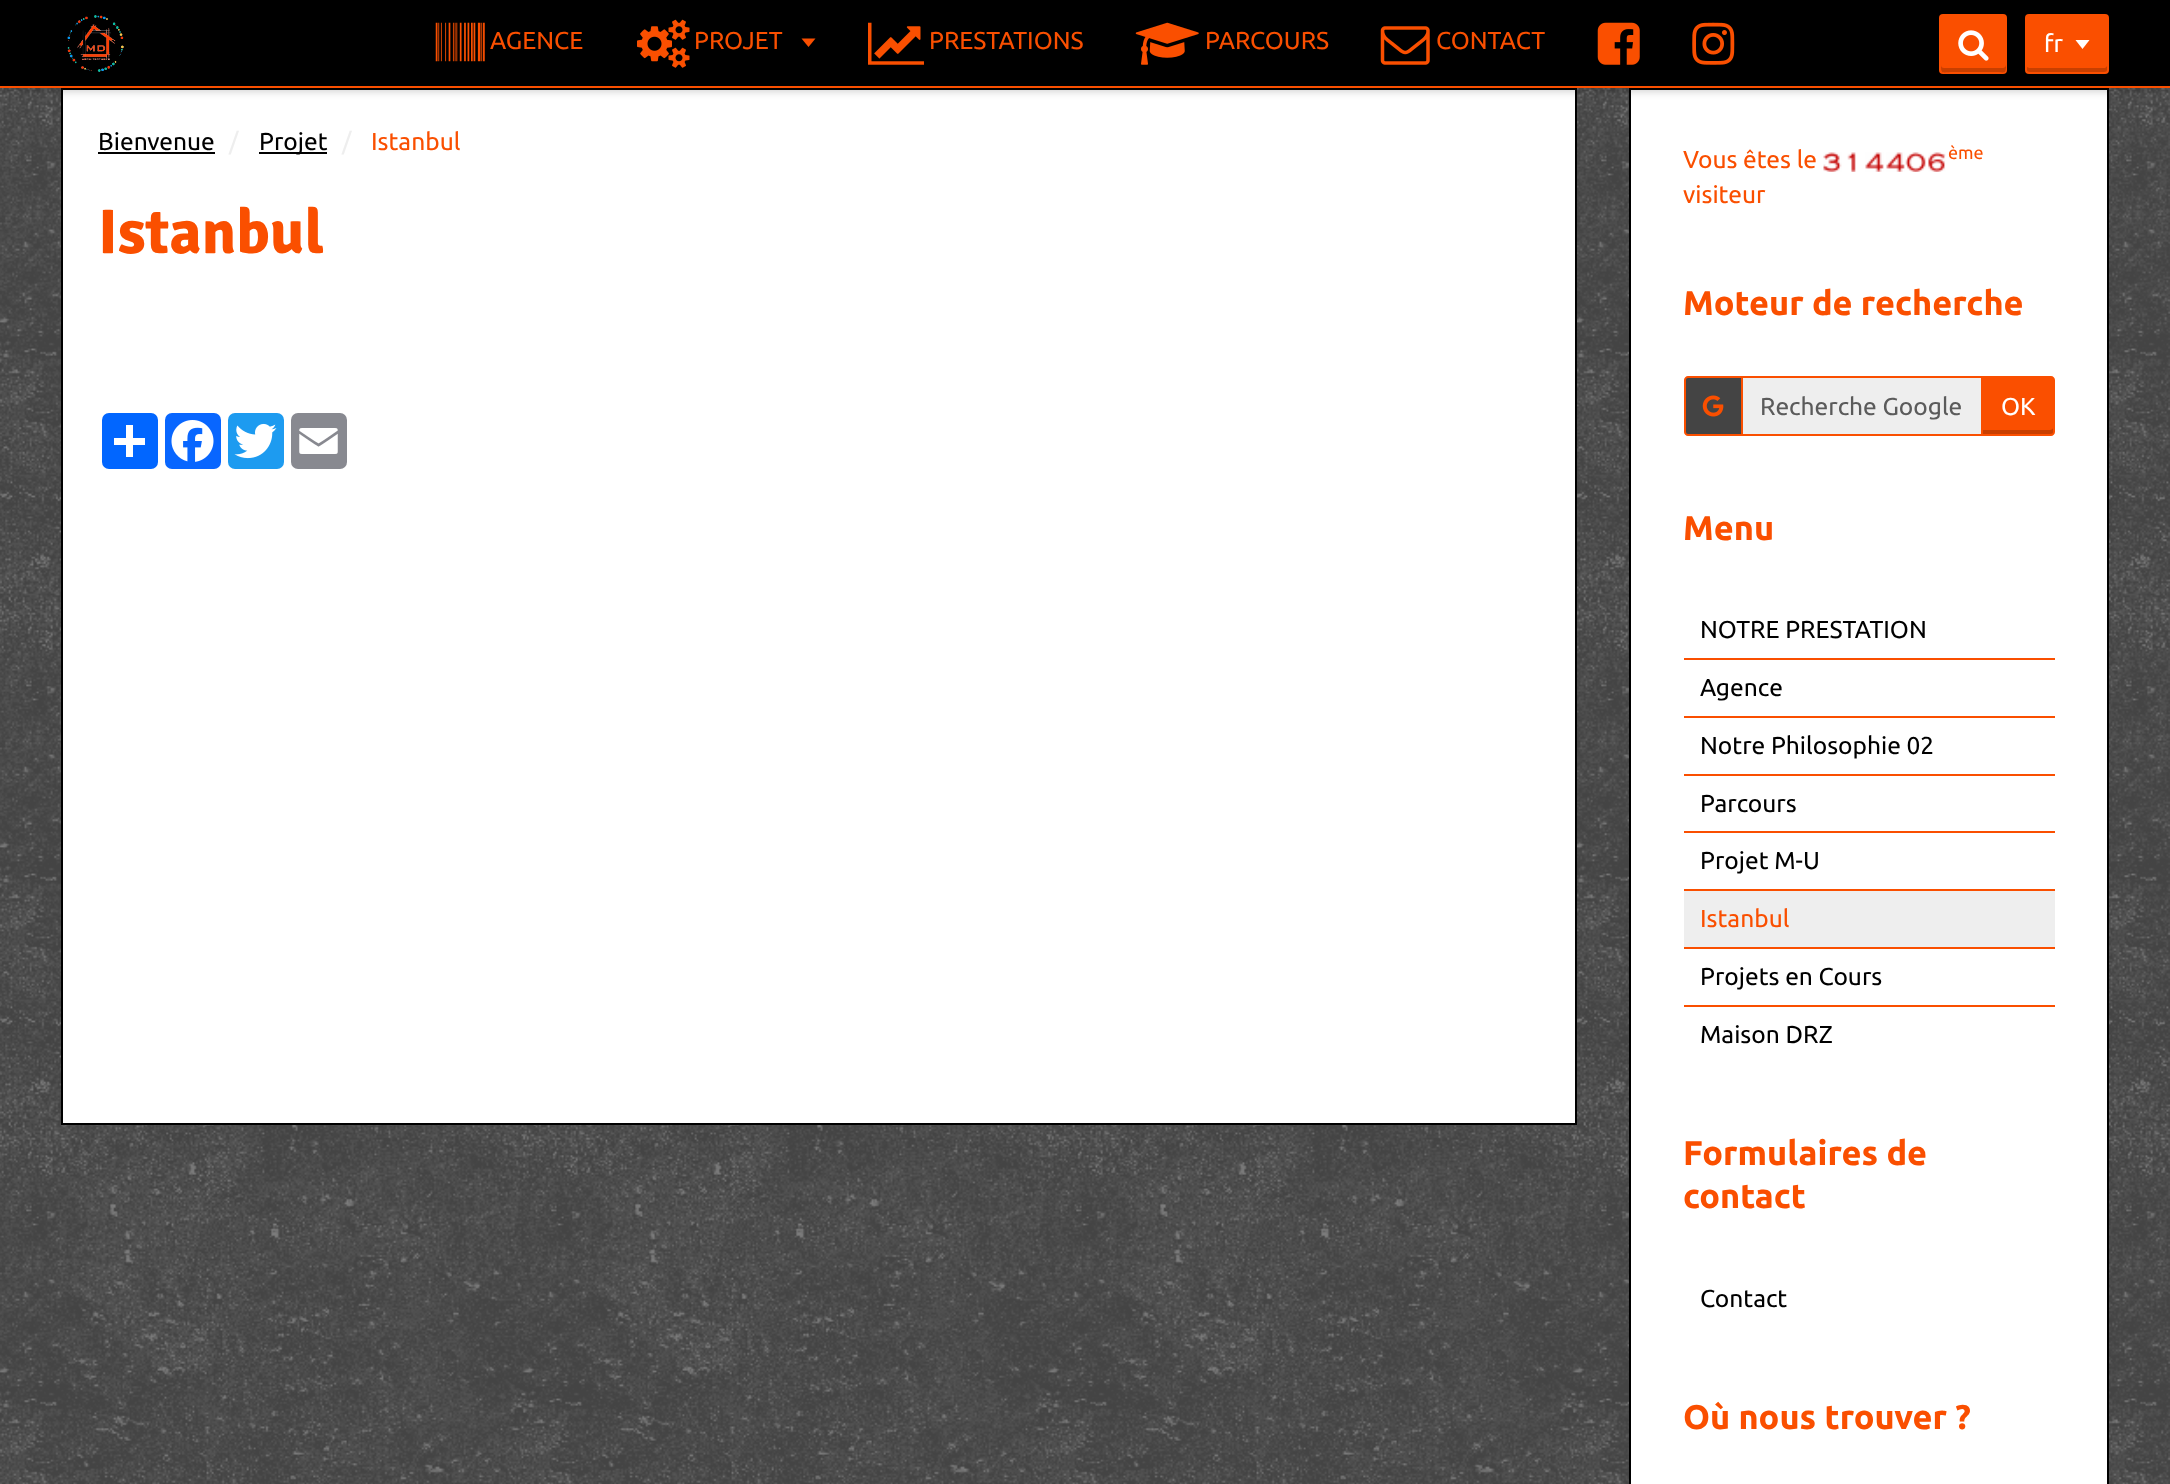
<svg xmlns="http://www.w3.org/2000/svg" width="2170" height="1484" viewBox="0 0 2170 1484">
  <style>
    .t1 { font: 24.5px Ubuntu; fill: #fa4f00; }
    .t2 { font: 24.5px Ubuntu; fill: #fff; }
    .t3 { font: 24.5px Ubuntu; fill: #000; }
    .t4 { font: 24.5px Ubuntu; fill: #eee; }
    .t5 { font: bold 63px Signika; fill: #fa4f00; }
    .t6 { font: 18px Ubuntu; fill: #fa4f00; }
    .t7 { font: bold 34.25px Ubuntu; fill: #fa4f00; }
    .t8 { font: 24.5px Ubuntu; fill: #5b5b5b; }
  </style>
  <rect width="100%" height="100%" fill="#444"/>
  <image x="0" y="88" width="2170" height="1396" href="images/1.png"/>
  <rect x="62" y="89" width="1514" height="1035" fill="#fff" stroke="#000" stroke-width="2"/>
  <rect x="1630" y="89" width="478" height="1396" fill="#fff" stroke="#000" stroke-width="2"/>
  <rect x="0" y="4" width="2170" height="87" fill="#00000033" filter="blur(4.5px)"/>
  <rect x="0" y="0" width="2170" height="86" fill="#000"/>
  <rect x="0" y="86" width="2170" height="2" fill="#fa4f00"/>
  <image x="67" y="15" width="57" height="57" href="images/2.png"/>
  <image x="435" y="22" width="50" height="40" href="images/3.png"/>
  <text x="490" y="49" class="t1">AGENCE</text>
  <image x="637" y="19" width="53" height="49" href="images/4.png"/>
  <text x="694" y="49" class="t1">PROJET</text>
  <path d="M801.5 38.5H815.5L808.5 47Z" fill="#fa4f00"/>
  <image x="868" y="22" width="56" height="43" href="images/5.png"/>
  <text x="929" y="49" class="t1">PRESTATIONS</text>
  <image x="1135" y="22" width="64" height="43" href="images/6.png"/>
  <text x="1205" y="49" class="t1">PARCOURS</text>
  <image x="1380" y="26" width="50" height="39" href="images/7.png"/>
  <text x="1436" y="49" class="t1">CONTACT</text>
  <image x="1597" y="22" width="43" height="43" href="images/8.png"/>
  <image x="1692" y="22" width="43" height="43" href="images/9.png"/>
  <rect x="1939" y="14" width="68" height="60" rx="4" fill="#fa4f00"/>
  <path d="M1941 65C1941 75 1942 72 1954 72H1994C2005 72 2006 75 2006 65C2006 67 2004 68 2003 68H1944C1942 68 1941 67 1941 65Z" fill="#c83f00"/>
  <image x="1958" y="30" width="31" height="31" href="images/10.png"/>
  <rect x="2025" y="14" width="84" height="60" rx="4" fill="#fa4f00"/>
  <path d="M2027 67V70C2027 71 2028 72 2030 72H2104C2106 72 2107 71 2107 70V65C2107 66 2107 67 2105 68H2029Z" fill="#c83f00"/>
  <text x="2044" y="52" class="t2">fr</text>
  <path d="M2075.5 40H2089.5L2082.5 49Z" fill="#fff"/>
  <text x="98" y="150" class="t3">Bienvenue</text>
  <rect x="98" y="152" width="117" height="2" fill="#000"/>
  <text x="229" y="150" class="t4">/</text>
  <rect x="259" y="152" width="68" height="2" fill="#000"/>
  <text x="259" y="150" class="t3">Projet</text>
  <text x="342" y="150" class="t4">/</text>
  <text x="371" y="150" class="t1">Istanbul</text>
  <text x="98" y="253" class="t5">Istanbul</text>
  <rect x="102" y="413" width="56" height="56" rx="7" fill="#0166ff"/>
  <rect x="126" y="425" width="7" height="32" fill="#fff"/>
  <rect x="114" y="438" width="31" height="7" fill="#fff"/>
  <rect x="165" y="413" width="56" height="56" rx="7" fill="#0866ff"/>
  <image x="171" y="420" width="43" height="42" href="images/11.png"/>
  <rect x="228" y="413" width="56" height="56" rx="7" fill="#1d9bf0"/>
  <image x="234" y="423" width="43" height="36" href="images/12.png"/>
  <rect x="291" y="413" width="56" height="56" rx="7" fill="#888990"/>
  <image x="299" y="428" width="39" height="26" href="images/13.png"/>
  <text x="1683" y="168" class="t1">Vous êtes le</text>
  <image x="1823" y="152" width="19" height="20" href="images/14.png"/>
  <image x="1847" y="152" width="9" height="20" href="images/15.png"/>
  <image x="1865" y="152" width="19" height="20" href="images/16.png"/>
  <image x="1886" y="152" width="19" height="20" href="images/16.png"/>
  <image x="1905" y="152" width="21" height="20" href="images/17.png"/>
  <image x="1928" y="152" width="18" height="20" href="images/18.png"/>
  <text x="1948" y="159" class="t6">ème</text>
  <text x="1683" y="203" class="t1">visiteur</text>
  <text x="1683" y="315" class="t7">Moteur de recherche</text>
  <path d="M1688 377H1742V435H1688C1686.5 435 1685 433.5 1685 432V380C1685 378.5 1686.5 377 1688 377Z" fill="#444" stroke="#fa4f00" stroke-width="2"/>
  <image x="1702" y="395" width="22" height="22" href="images/19.png"/>
  <rect x="1742" y="377" width="240" height="58" fill="#eee" stroke="#fa4f00" stroke-width="2"/>
  <text x="1760" y="415" class="t8">Recherche Google</text>
  <path d="M1981 376H2051C2053 376 2055 378 2055 380V432C2055 434 2053 436 2051 436H1981Z" fill="#fa4f00"/>
  <path d="M1983 430V434H2050C2052 434 2053 433 2053 432V428C2053 429 2051 430 2050 430Z" fill="#c83f00"/>
  <text x="2001" y="415" class="t2">OK</text>
  <text x="1683" y="540" class="t7">Menu</text>
  <rect x="1684" y="658" width="371" height="2" fill="#fa4f00"/>
  <text x="1700" y="638" class="t3">NOTRE PRESTATION</text>
  <rect x="1684" y="716" width="371" height="2" fill="#fa4f00"/>
  <text x="1700" y="696" class="t3">Agence</text>
  <rect x="1684" y="774" width="371" height="2" fill="#fa4f00"/>
  <text x="1700" y="754" class="t3">Notre Philosophie 02</text>
  <rect x="1684" y="831" width="371" height="2" fill="#fa4f00"/>
  <text x="1700" y="812" class="t3">Parcours</text>
  <rect x="1684" y="889" width="371" height="2" fill="#fa4f00"/>
  <text x="1700" y="869" class="t3">Projet M-U</text>
  <rect x="1684" y="947" width="371" height="2" fill="#fa4f00"/>
  <rect x="1684" y="891" width="371" height="56" fill="#eee"/>
  <text x="1700" y="927" class="t1">Istanbul</text>
  <rect x="1684" y="1005" width="371" height="2" fill="#fa4f00"/>
  <text x="1700" y="985" class="t3">Projets en Cours</text>
  <text x="1700" y="1043" class="t3">Maison DRZ</text>
  <text x="1683" y="1165" class="t7">Formulaires de</text>
  <text x="1683" y="1208" class="t7">contact</text>
  <text x="1700" y="1307" class="t3">Contact</text>
  <text x="1683" y="1429" class="t7">Où nous trouver ?</text>
</svg>
